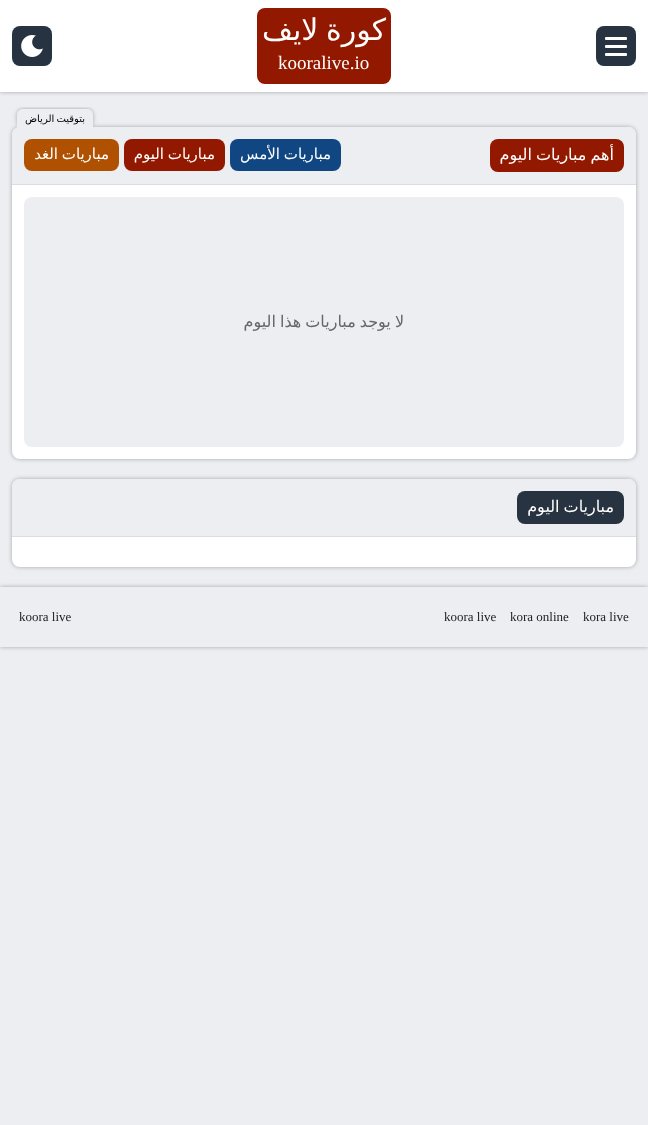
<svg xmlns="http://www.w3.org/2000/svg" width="648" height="1125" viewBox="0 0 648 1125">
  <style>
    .t1 { font: 30px DejaVu Sans; direction: rtl; fill: #fff; }
    .t2 { font: 19px Liberation Serif; fill: #fff; }
    .t3 { font: 10px DejaVu Sans; direction: rtl; fill: #000; }
    .t4 { font: 16px DejaVu Sans; direction: rtl; fill: #fff; }
    .t5 { font: 15px DejaVu Sans; direction: rtl; fill: #fff; }
    .t6 { font: 16px DejaVu Sans; direction: rtl; fill: #666; }
    .t7 { font: 13px Liberation Serif; fill: #222; }
  </style>
  <defs>
    <clipPath id="clip1"><rect x="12" y="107" width="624" height="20"/></clipPath>
    <clipPath id="clip2"><path d="M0 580H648V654H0ZM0 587H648V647H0Z" clip-rule="evenodd"/></clipPath>
  </defs>
  <rect width="100%" height="100%" fill="#eceef2"/>
  <rect x="0" y="0" width="648" height="92" fill="#0000004d" filter="blur(2px)"/>
  <rect x="0" y="0" width="648" height="92" fill="#fff"/>
  <rect x="596" y="26" width="40" height="40" rx="8" fill="#273340"/>
  <rect x="605" y="37" width="22" height="3" rx="1" fill="#fff"/>
  <rect x="605" y="45" width="22" height="3" rx="1" fill="#fff"/>
  <rect x="605" y="53" width="22" height="3" rx="1" fill="#fff"/>
  <rect x="257" y="8" width="134" height="76" rx="8" fill="#931800"/>
  <text x="386" y="40" word-spacing="-2" class="t1">كورة لايف</text>
  <text x="278" y="69" class="t2">kooralive.io</text>
  <rect x="12" y="26" width="40" height="40" rx="8" fill="#273340"/>
  <image x="21" y="35" width="22" height="22" href="images/1.png"/>
  <rect x="12" y="127" width="624" height="332" rx="8" fill="#0000004d" filter="blur(2px)"/>
  <rect x="12" y="127" width="624" height="332" rx="8" fill="#fff"/>
  <path d="M20 127H628C632.5 127 636 130.5 636 135V185H12V135C12 130.5 15.5 127 20 127Z" fill="#eceef2"/>
  <g clip-path="url(#clip1)">
    <rect x="17" y="109" width="76" height="18" rx="6" fill="#0000004d" filter="blur(2px)"/>
  </g>
  <path d="M23 109H87C90.5 109 93 111.5 93 115V127H17V115C17 111.5 19.5 109 23 109Z" fill="#eceef2"/>
  <text x="85" y="122" word-spacing="-1" class="t3">بتوقيت الرياض</text>
  <rect x="12" y="184" width="624" height="1" fill="#ddd"/>
  <rect x="490" y="139" width="134" height="33" rx="8" fill="#931800"/>
  <text x="614" y="160" word-spacing="-1" class="t4">أهم مباريات اليوم</text>
  <rect x="230" y="139" width="111" height="32" rx="8" fill="#104783"/>
  <text x="331" y="159" word-spacing="-1" class="t5">مباريات الأمس</text>
  <rect x="124" y="139" width="101" height="32" rx="8" fill="#931800"/>
  <text x="215" y="159" word-spacing="-1" class="t5">مباريات اليوم</text>
  <rect x="24" y="139" width="95" height="32" rx="8" fill="#af5100"/>
  <text x="109" y="159" word-spacing="-1" class="t5">مباريات الغد</text>
  <rect x="24" y="197" width="600" height="250" rx="8" fill="#eceef2"/>
  <text x="404" y="327" word-spacing="-1" class="t6">لا يوجد مباريات هذا اليوم</text>
  <rect x="12" y="479" width="624" height="88" rx="8" fill="#0000004d" filter="blur(2px)"/>
  <rect x="12" y="479" width="624" height="88" rx="8" fill="#fff"/>
  <path d="M20 479H628C632.5 479 636 482.5 636 487V537H12V487C12 482.5 15.5 479 20 479Z" fill="#eceef2"/>
  <rect x="12" y="536" width="624" height="1" fill="#ddd"/>
  <rect x="517" y="491" width="107" height="33" rx="8" fill="#273340"/>
  <text x="614" y="512" word-spacing="-1" class="t4">مباريات اليوم</text>
  <g clip-path="url(#clip2)">
    <rect x="0" y="587" width="648" height="60" fill="#0000004d" filter="blur(2px)"/>
  </g>
  <text x="583" y="621" class="t7">kora live</text>
  <text x="510" y="621" class="t7">kora online</text>
  <text x="444" y="621" class="t7">koora live</text>
  <text x="19" y="621" class="t7">koora live</text>
</svg>
